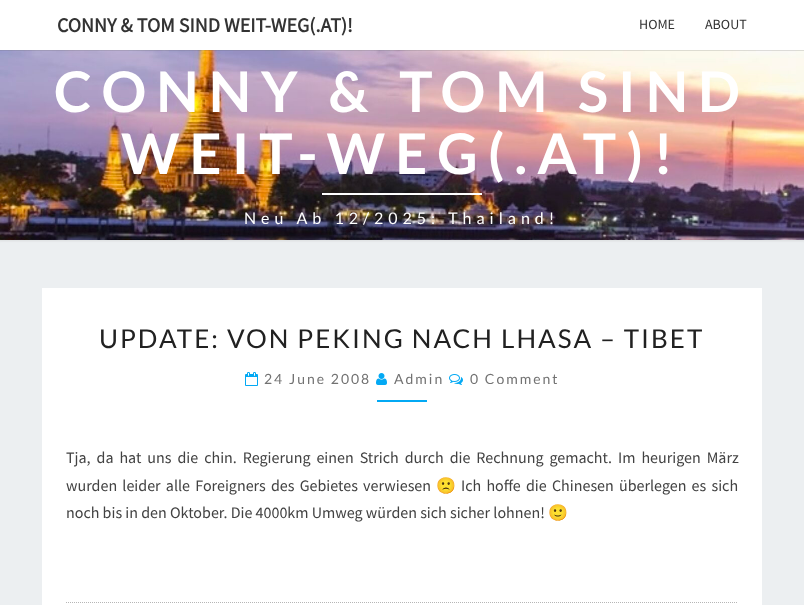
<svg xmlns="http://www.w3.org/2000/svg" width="804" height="605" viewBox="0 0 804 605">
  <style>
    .t1 { font: bold 20px Source Sans Pro; fill: #333; }
    .t2 { font: 14px Source Sans Pro; fill: #333; }
    .t3 { font: bold 56px Lato; letter-spacing: 10px; fill: #fff; }
    .t4 { font: 16px Lato; letter-spacing: 5px; fill: #fff; }
    .t5 { font: 26px Lato; letter-spacing: 2px; fill: #212121; }
    .t6 { font: 14px Lato; letter-spacing: 2px; fill: #727272; }
    .t7 { font: 16px Source Sans Pro; fill: #424242; }
    .t8 { font: 16px Noto Color Emoji; fill: #424242; }
  </style>
  <rect width="100%" height="100%" fill="#eceff1"/>
  <rect x="-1" y="49" width="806" height="192" fill="#b6b6b64d" filter="blur(1px)"/>
  <image x="0" y="50" width="804" height="190" href="images/1.png"/>
  <rect x="0" y="1" width="804" height="50" fill="#64646433" filter="blur(0.5px)"/>
  <rect x="0" y="0" width="804" height="50" fill="#fff"/>
  <text x="57" y="32" class="t1">CONNY &amp; TOM SIND WEIT-WEG(.AT)!</text>
  <text x="639" y="29" class="t2">HOME</text>
  <text x="705" y="29" class="t2">ABOUT</text>
  <text x="54" y="112" class="t3">CONNY &amp; TOM SIND</text>
  <text x="121" y="174" class="t3">WEIT-WEG(.AT)!</text>
  <rect x="322" y="193" width="160" height="2" fill="#fff"/>
  <text x="244" y="224" class="t4">Neu Ab 12/2025: Thailand!</text>
  <rect x="42" y="288" width="720" height="317" fill="#fff"/>
  <text x="99" y="348" class="t5">UPDATE: VON PEKING NACH LHASA – TIBET</text>
  <image x="245" y="372" width="13" height="14" href="images/2.png"/>
  <text x="264" y="384" class="t6">24 June 2008</text>
  <image x="376" y="373" width="11" height="12" href="images/3.png"/>
  <text x="394" y="384" class="t6">Admin</text>
  <image x="449" y="374" width="14" height="11" href="images/4.png"/>
  <text x="470" y="384" class="t6">0 Comment</text>
  <rect x="377" y="400" width="50" height="2" fill="#03a9f4"/>
  <text x="66" y="463" word-spacing="2.75" class="t7">Tja, da hat uns die chin. Regierung einen Strich durch die Rechnung gemacht. Im heurigen März</text>
  <text x="66" y="491" word-spacing="2" class="t7">wurden leider alle Foreigners des Gebietes verwiesen</text>
  <text x="436" y="491" class="t8">🙁</text>
  <text x="461" y="491" word-spacing="2" class="t7">Ich hoffe die Chinesen überlegen es sich</text>
  <text x="66" y="518" class="t7">noch bis in den Oktober. Die 4000km Umweg würden sich sicher lohnen!</text>
  <text x="548" y="518" class="t8">🙂</text>
  <path d="M66 602.5H738" fill="none" stroke="#b6b6b6" stroke-dasharray="1 1"/>
</svg>
